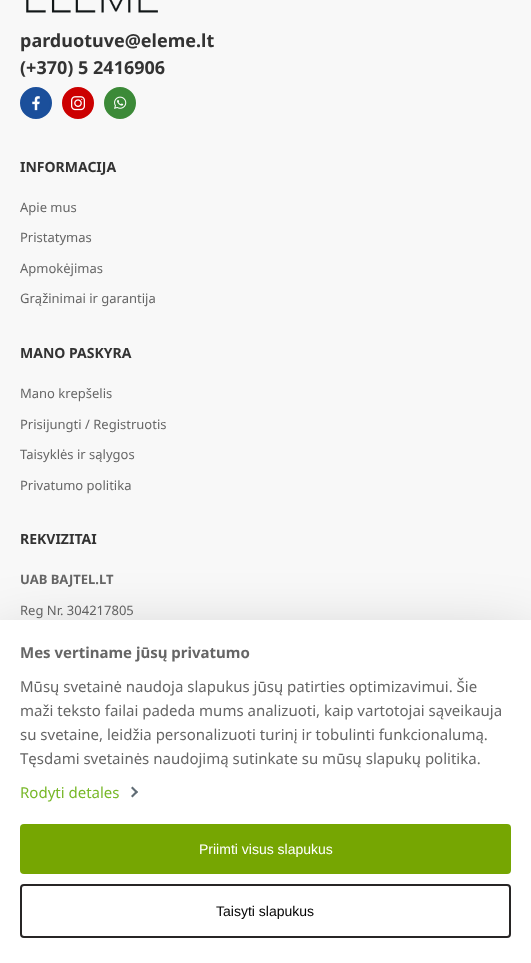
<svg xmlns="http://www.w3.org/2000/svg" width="531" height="963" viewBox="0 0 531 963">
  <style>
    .t1 { font: bold 18px Noto Sans; fill: #333; }
    .t2 { font: bold 14px Noto Sans; fill: #333; }
    .t3 { font: 13px Noto Sans; fill: #666; }
    .t4 { font: bold 13px Noto Sans; fill: #666; }
    .t5 { font: bold 15px Noto Sans; fill: #666; }
    .t6 { font: 15px Noto Sans; fill: #666; }
    .t7 { font: 15px Noto Sans; fill: #78b829; }
    .t8 { font: 14px Liberation Sans; fill: #fff; }
    .t9 { font: 14px Liberation Sans; fill: #000; }
  </style>
  <rect width="100%" height="100%" fill="#f8f8f8"/>
  <image x="26" y="0" width="132" height="13" href="images/1.png"/>
  <text x="20" y="47" class="t1">parduotuve@eleme.lt</text>
  <text x="20" y="74" class="t1">(+370) 5 2416906</text>
  <circle cx="36" cy="103" r="15" fill="#1b4f9b" stroke="#1b4f9b" stroke-width="2"/>
  <image x="32" y="96" width="8" height="15" href="images/2.png"/>
  <circle cx="78" cy="103" r="15" fill="#cc0001" stroke="#cc0001" stroke-width="2"/>
  <image x="71" y="96" width="14" height="15" href="images/3.png"/>
  <circle cx="120" cy="103" r="15" fill="#3c8a38" stroke="#3c8a38" stroke-width="2"/>
  <image x="114" y="96" width="13" height="13" href="images/4.png"/>
  <text x="20" y="172" class="t2">INFORMACIJA</text>
  <text x="20" y="212" class="t3">Apie mus</text>
  <text x="20" y="242" class="t3">Pristatymas</text>
  <text x="20" y="273" class="t3">Apmokėjimas</text>
  <text x="20" y="303" class="t3">Grąžinimai ir garantija</text>
  <text x="20" y="358" class="t2">MANO PASKYRA</text>
  <text x="20" y="398" class="t3">Mano krepšelis</text>
  <text x="20" y="429" class="t3">Prisijungti / Registruotis</text>
  <text x="20" y="459" class="t3">Taisyklės ir sąlygos</text>
  <text x="20" y="490" class="t3">Privatumo politika</text>
  <text x="20" y="544" class="t2">REKVIZITAI</text>
  <text x="20" y="584" class="t4">UAB BAJTEL.LT</text>
  <text x="20" y="615" class="t3">Reg Nr. 304217805</text>
  <rect x="0" y="650" width="531" height="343" fill="#0000004d" filter="blur(35px)"/>
  <rect x="0" y="620" width="531" height="343" fill="#fff"/>
  <text x="20" y="658" class="t5">Mes vertiname jūsų privatumo</text>
  <text x="20" y="692" class="t6">Mūsų svetainė naudoja slapukus jūsų patirties optimizavimui. Šie</text>
  <text x="20" y="716" class="t6">maži teksto failai padeda mums analizuoti, kaip vartotojai sąveikauja</text>
  <text x="20" y="740" class="t6">su svetaine, leidžia personalizuoti turinį ir tobulinti funkcionalumą.</text>
  <text x="20" y="764" class="t6">Tęsdami svetainės naudojimą sutinkate su mūsų slapukų politika.</text>
  <text x="20" y="798" class="t7">Rodyti detales</text>
  <path d="M132.5 786.5L138 792L136.5 793.5L131 788Z" fill="#606c75"/>
  <path d="M136.5 790.5L138 792L132.5 797.5L131 796Z" fill="#606c75"/>
  <rect x="20" y="824" width="491" height="50" rx="4" fill="#76a602"/>
  <text x="199" y="854" class="t8">Priimti visus slapukus</text>
  <rect x="21" y="885" width="489" height="52" rx="3" fill="none" stroke="#272525" stroke-width="2"/>
  <text x="216" y="916" class="t9">Taisyti slapukus</text>
</svg>
